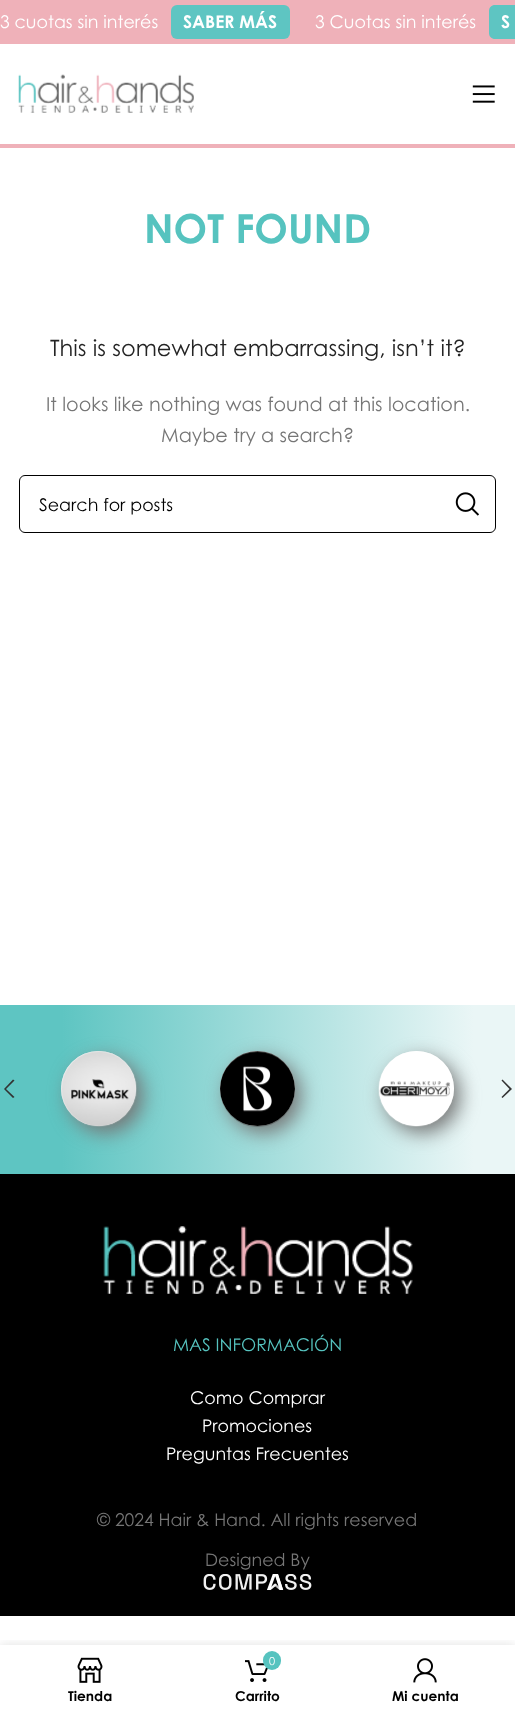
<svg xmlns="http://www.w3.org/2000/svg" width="515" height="1713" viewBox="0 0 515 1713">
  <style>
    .t1 { font: 17.5px Century Gothic; fill: #fff; }
    .t2 { font: bold 17.5px Century Gothic; fill: #fff; }
    .t3 { font: bold 40px Century Gothic; fill: #56c3bf; }
    .t4 { font: 22.5px Century Gothic; fill: #242424; }
    .t5 { font: 19.25px Century Gothic; fill: #767676; }
    .t6 { font: 17.5px Century Gothic; fill: #000; }
    .t7 { font: 17.5px Century Gothic; fill: #56c3bf; }
    .t8 { font: 17.5px Century Gothic; fill: #767676; }
    .t9 { font: bold 13.75px Century Gothic; fill: #000; }
    .t10 { font: 11px Century Gothic; fill: #fff; }
  </style>
  <defs>
    <linearGradient id="g1" gradientUnits="userSpaceOnUse" x1="0" y1="1089" x2="515" y2="1089"><stop offset="0.12" stop-color="#5ec5c2"/><stop offset="0.92" stop-color="#eaf6f6"/></linearGradient>
    <clipPath id="clip1"><rect x="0" y="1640" width="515" height="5"/></clipPath>
  </defs>
  <rect width="100%" height="100%" fill="#fff"/>
  <rect x="0" y="0" width="515" height="44" fill="#efb1b9"/>
  <text x="0" y="28" class="t1">3 cuotas sin interés</text>
  <rect x="171" y="5" width="119" height="34" rx="6" fill="#5ec5c2"/>
  <text x="183" y="28" class="t2">SABER MÁS</text>
  <text x="315" y="28" class="t1">3 Cuotas sin interés</text>
  <path d="M495 5H515V39H495C491.5 39 489 36.5 489 33V11C489 7.5 491.5 5 495 5Z" fill="#5ec5c2"/>
  <text x="501" y="28" class="t2">S</text>
  <rect x="0" y="144" width="515" height="4" fill="#efb1b9"/>
  <image x="18" y="74" width="176" height="39" href="images/1.png"/>
  <image x="472" y="85" width="23" height="18" href="images/2.png"/>
  <text x="144" y="243" class="t3">NOT FOUND</text>
  <text x="50" y="356" class="t4">This is somewhat embarrassing, isn’t it?</text>
  <text x="46" y="411" class="t5">It looks like nothing was found at this location.</text>
  <text x="161" y="442" class="t5">Maybe try a search?</text>
  <rect x="19.5" y="475.5" width="476" height="57" rx="5.5" fill="none" stroke="#000"/>
  <text x="39" y="511" class="t6">Search for posts</text>
  <image x="455" y="492" width="24" height="24" href="images/3.png"/>
  <rect x="0" y="1005" width="515" height="169" fill="url(#g1)"/>
  <rect x="68" y="1058" width="75" height="75" rx="37.5" fill="#767676" filter="blur(9.5px)"/>
  <circle cx="98.5" cy="1088.5" r="37.5" fill="#fff"/>
  <image x="61" y="1051" width="76" height="76" href="images/4.png"/>
  <rect x="226" y="1058" width="75" height="75" rx="37.5" fill="#767676" filter="blur(9.5px)"/>
  <circle cx="257.5" cy="1088.5" r="37.5" fill="#fff"/>
  <image x="220" y="1051" width="75" height="76" href="images/5.png"/>
  <rect x="385" y="1058" width="75" height="75" rx="37.5" fill="#767676" filter="blur(9.5px)"/>
  <circle cx="416.5" cy="1088.5" r="37.5" fill="#fff"/>
  <image x="378" y="1051" width="76" height="76" href="images/6.png"/>
  <path d="M14.5 1080.5L13 1079.5L4 1089L13 1098L14.5 1097L6 1089Z" fill="#333"/>
  <path d="M501.5 1080.5L509.5 1089L501.5 1097L502.5 1098L512 1089L502.5 1079.5Z" fill="#333"/>
  <rect x="0" y="1174" width="515" height="442" fill="#000"/>
  <image x="103" y="1226" width="310" height="68" href="images/7.png"/>
  <text x="173" y="1351" class="t7">MAS INFORMACIÓN</text>
  <text x="190" y="1404" class="t1">Como Comprar</text>
  <text x="202" y="1432" class="t1">Promociones</text>
  <text x="166" y="1460" class="t1">Preguntas Frecuentes</text>
  <text x="97" y="1526" class="t8">© 2024 Hair &amp; Hand. All rights reserved</text>
  <text x="205" y="1566" class="t8">Designed By</text>
  <image x="203" y="1574" width="109" height="16" href="images/8.png"/>
  <g clip-path="url(#clip1)">
    <rect x="0" y="1645" width="515" height="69" fill="#0000001f" filter="blur(5.5px)"/>
  </g>
  <image x="77" y="1657" width="26" height="26" href="images/9.png"/>
  <text x="68" y="1701" class="t9">Tienda</text>
  <image x="245" y="1660" width="23" height="22" href="images/10.png"/>
  <rect x="263" y="1651" width="18" height="19" rx="9" fill="#56c3bf"/>
  <text x="269" y="1665" class="t10">0</text>
  <text x="235" y="1701" class="t9">Carrito</text>
  <image x="413" y="1658" width="24" height="25" href="images/11.png"/>
  <text x="392" y="1701" class="t9">Mi cuenta</text>
</svg>
